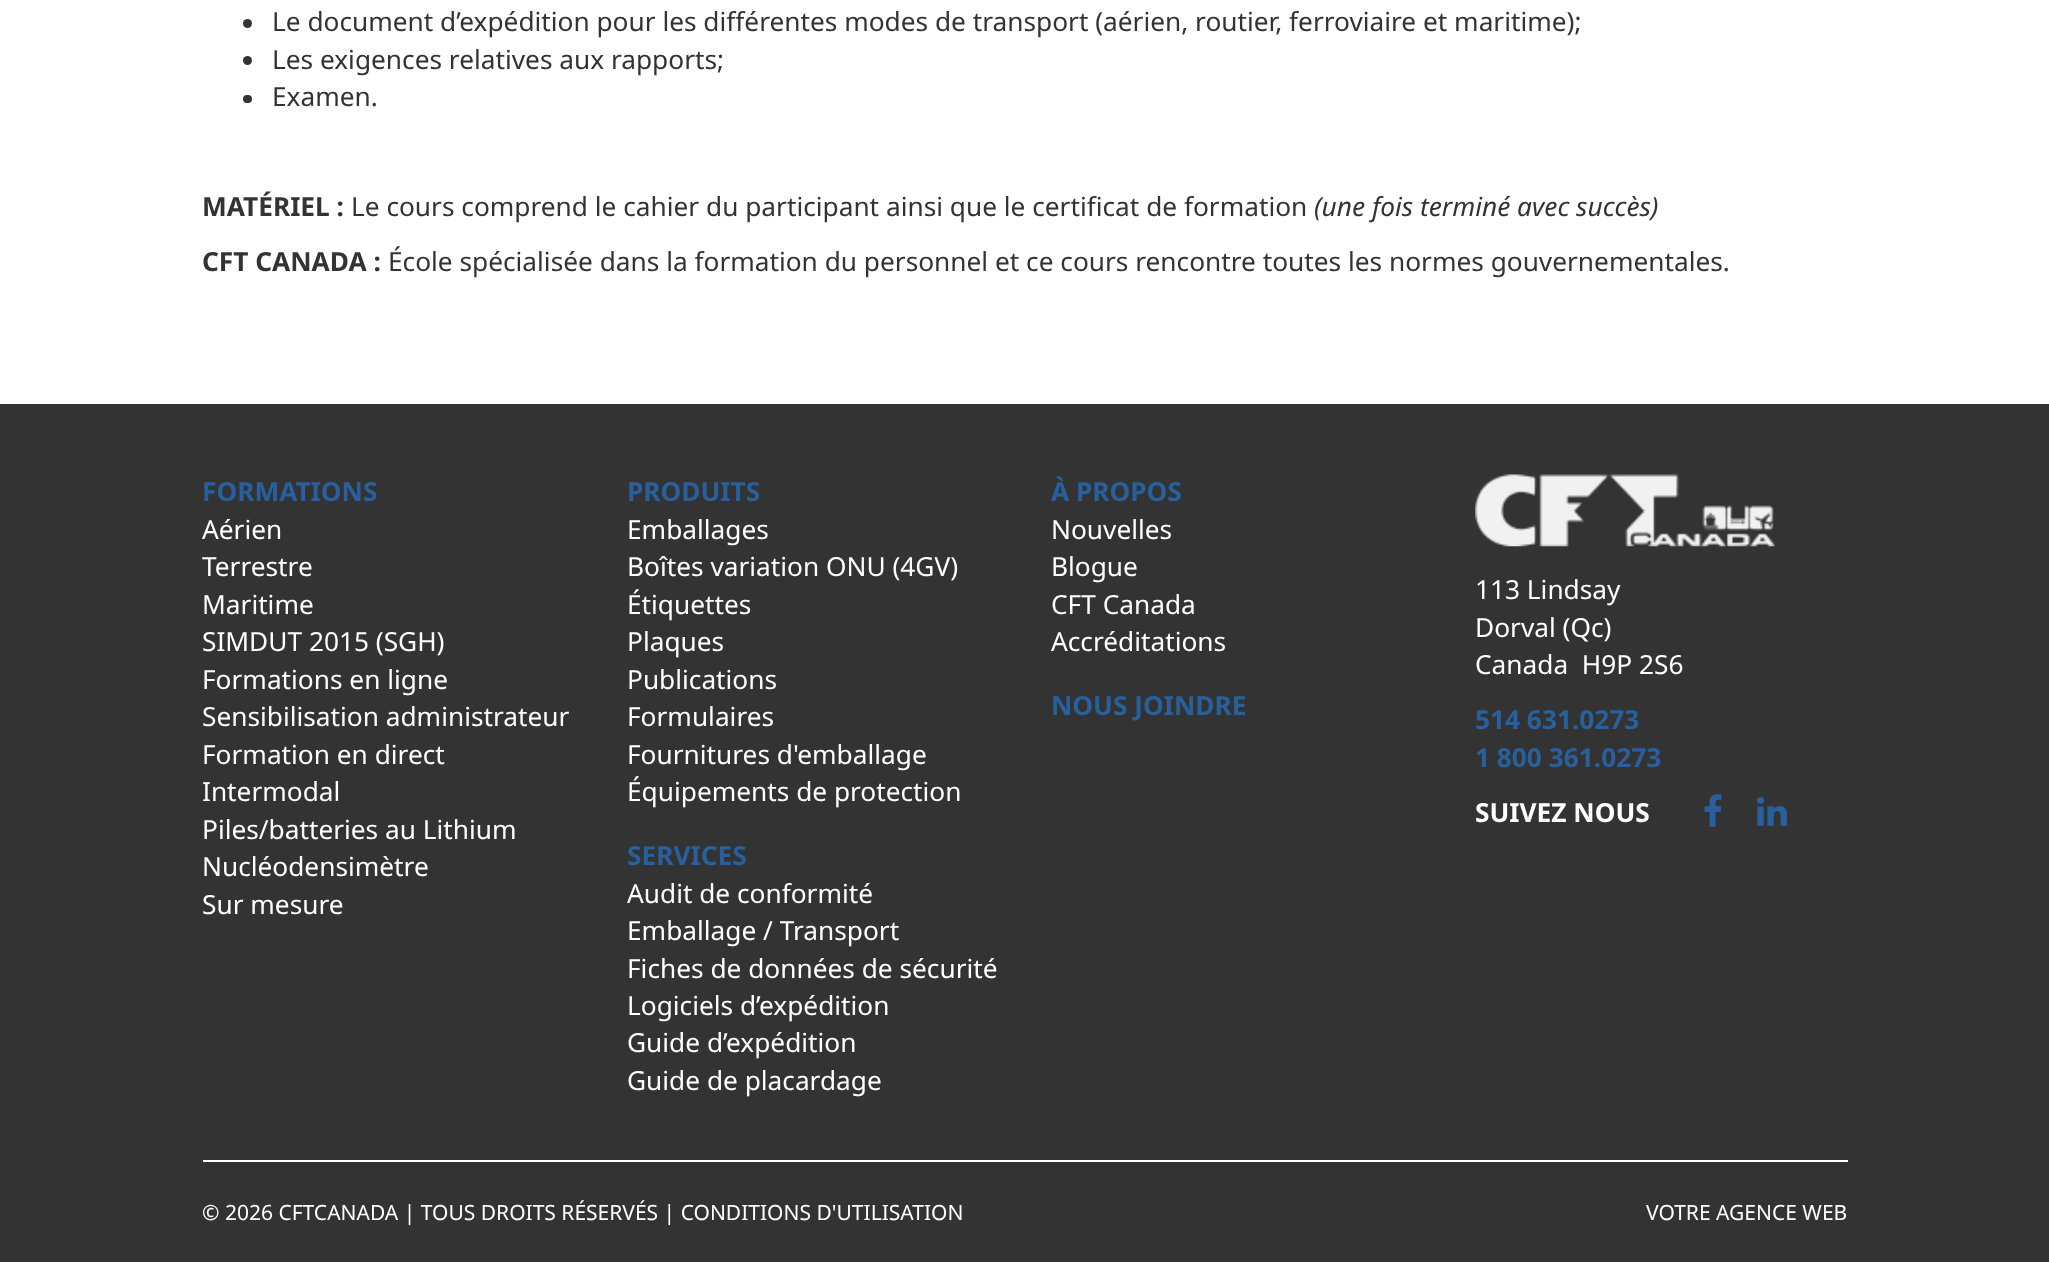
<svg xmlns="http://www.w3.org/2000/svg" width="2049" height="1262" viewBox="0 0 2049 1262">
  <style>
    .t1 { font: 26.25px Noto Sans; fill: #333; }
    .t2 { font: bold 26.25px Noto Sans; fill: #333; }
    .t3 { font: italic 26.25px Noto Sans; fill: #333; }
    .t4 { font: bold 26.25px Noto Sans; fill: #28609e; }
    .t5 { font: 26.25px Noto Sans; fill: #fff; }
    .t6 { font: bold 26.25px Noto Sans; fill: #fff; }
    .t7 { font: 21px Noto Sans; fill: #fff; }
  </style>
  <rect width="100%" height="100%" fill="#fff"/>
  <circle cx="247.5" cy="23.5" r="4.5" fill="#333"/>
  <text x="272" y="31" class="t1">Le document d’expédition pour les différentes modes de transport (aérien, routier, ferroviaire et maritime);</text>
  <circle cx="247.5" cy="60.5" r="4.5" fill="#333"/>
  <text x="272" y="69" class="t1">Les exigences relatives aux rapports;</text>
  <rect x="243" y="95" width="9" height="8" rx="4" fill="#333"/>
  <text x="272" y="106" class="t1">Examen.</text>
  <text x="202" y="216" class="t2">MATÉRIEL :</text>
  <text x="351" y="216" class="t1">Le cours comprend le cahier du participant ainsi que le certificat de formation</text>
  <text x="1314" y="216" class="t3">(une fois terminé avec succès)</text>
  <text x="202" y="271" class="t2">CFT CANADA :</text>
  <text x="388" y="271" class="t1">École spécialisée dans la formation du personnel et ce cours rencontre toutes les normes gouvernementales.</text>
  <rect x="0" y="404" width="2049" height="858" fill="#333"/>
  <text x="202" y="501" class="t4">FORMATIONS</text>
  <text x="202" y="539" class="t5">Aérien</text>
  <text x="202" y="576" class="t5">Terrestre</text>
  <text x="202" y="614" class="t5">Maritime</text>
  <text x="202" y="651" class="t5">SIMDUT 2015 (SGH)</text>
  <text x="202" y="689" class="t5">Formations en ligne</text>
  <text x="202" y="726" class="t5">Sensibilisation administrateur</text>
  <text x="202" y="764" class="t5">Formation en direct</text>
  <text x="202" y="801" class="t5">Intermodal</text>
  <text x="202" y="839" class="t5">Piles/batteries au Lithium</text>
  <text x="202" y="876" class="t5">Nucléodensimètre</text>
  <text x="202" y="914" class="t5">Sur mesure</text>
  <text x="627" y="501" class="t4">PRODUITS</text>
  <text x="627" y="539" class="t5">Emballages</text>
  <text x="627" y="576" class="t5">Boîtes variation ONU (4GV)</text>
  <text x="627" y="614" class="t5">Étiquettes</text>
  <text x="627" y="651" class="t5">Plaques</text>
  <text x="627" y="689" class="t5">Publications</text>
  <text x="627" y="726" class="t5">Formulaires</text>
  <text x="627" y="764" class="t5">Fournitures d'emballage</text>
  <text x="627" y="801" class="t5">Équipements de protection</text>
  <text x="627" y="865" class="t4">SERVICES</text>
  <text x="627" y="903" class="t5">Audit de conformité</text>
  <text x="627" y="940" class="t5">Emballage / Transport</text>
  <text x="627" y="978" class="t5">Fiches de données de sécurité</text>
  <text x="627" y="1015" class="t5">Logiciels d’expédition</text>
  <text x="627" y="1052" class="t5">Guide d’expédition</text>
  <text x="627" y="1090" class="t5">Guide de placardage</text>
  <text x="1051" y="501" class="t4">À PROPOS</text>
  <text x="1051" y="539" class="t5">Nouvelles</text>
  <text x="1051" y="576" class="t5">Blogue</text>
  <text x="1051" y="614" class="t5">CFT Canada</text>
  <text x="1051" y="651" class="t5">Accréditations</text>
  <text x="1051" y="715" class="t4">NOUS JOINDRE</text>
  <image x="1475" y="474" width="300" height="73" href="images/1.png"/>
  <text x="1475" y="599" class="t5">113 Lindsay</text>
  <text x="1475" y="637" class="t5">Dorval (Qc)</text>
  <text x="1475" y="674" class="t5" xml:space="preserve">Canada  H9P 2S6</text>
  <text x="1475" y="729" class="t4">514 631.0273</text>
  <text x="1475" y="767" class="t4">1 800 361.0273</text>
  <text x="1475" y="822" class="t6">SUIVEZ NOUS</text>
  <image x="1704" y="794" width="18" height="33" href="images/2.png"/>
  <image x="1757" y="797" width="30" height="29" href="images/3.png"/>
  <rect x="203" y="1160" width="1645" height="2" fill="#fff"/>
  <text x="202" y="1220" class="t7">© 2026 CFTCANADA | TOUS DROITS RÉSERVÉS | CONDITIONS D'UTILISATION</text>
  <text x="1646" y="1220" class="t7">VOTRE AGENCE WEB</text>
</svg>
